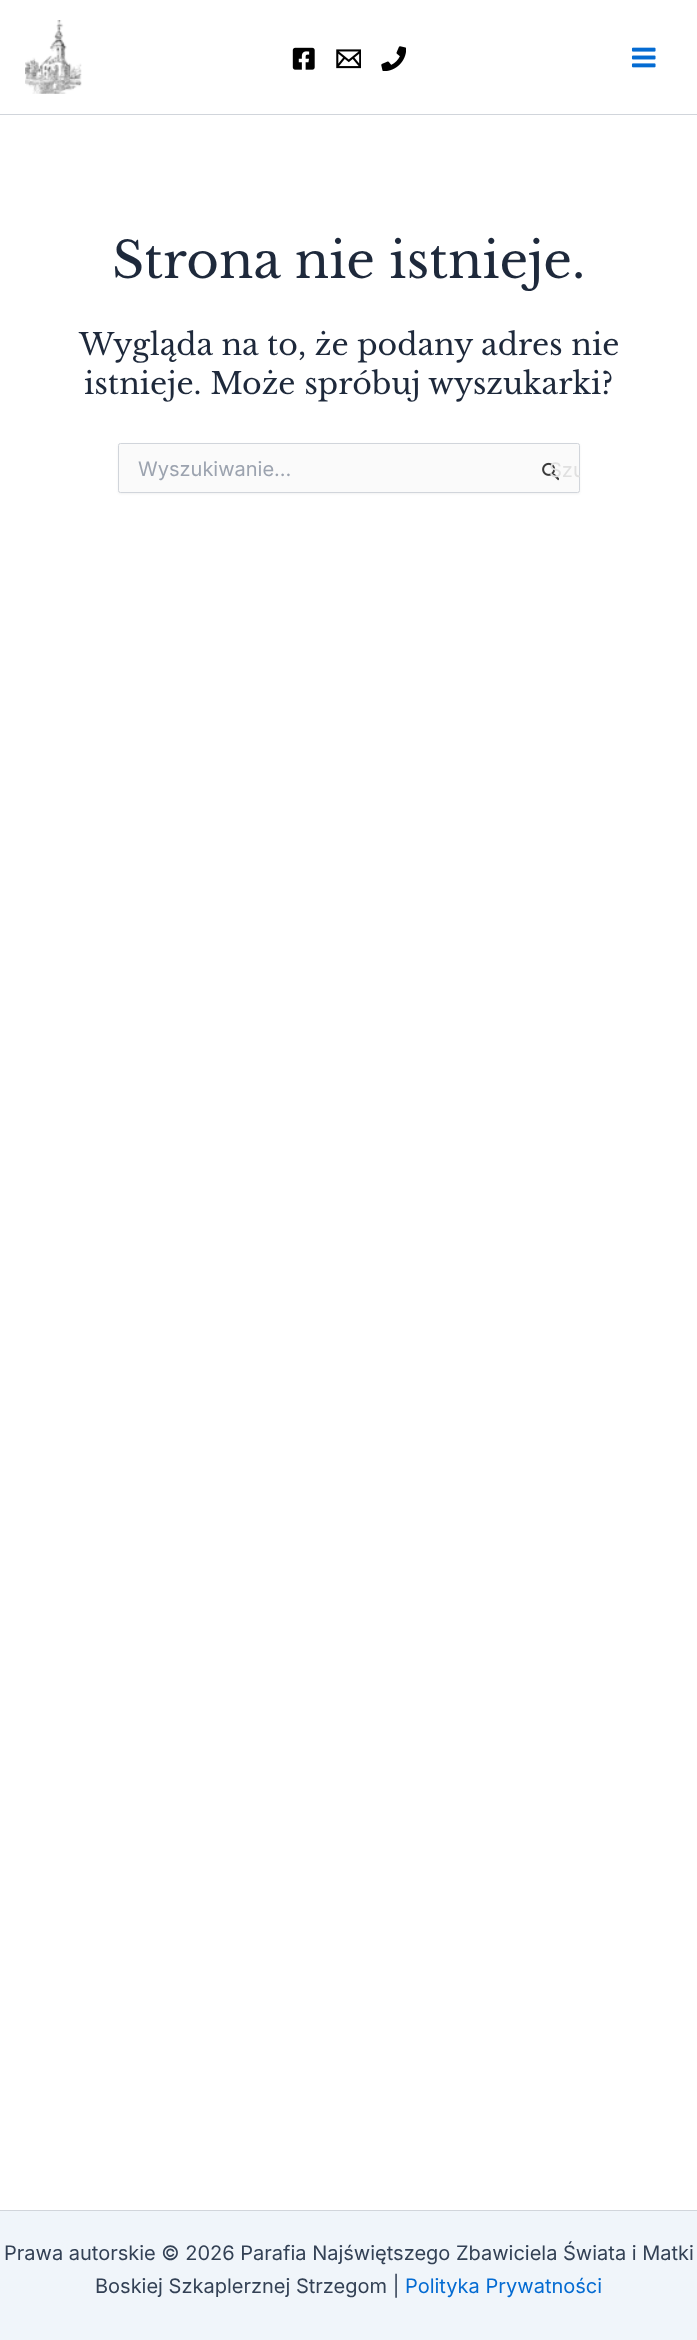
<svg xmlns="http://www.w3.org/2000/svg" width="697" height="2340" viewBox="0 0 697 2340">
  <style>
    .t1 { font: 50px Libre Baskerville; fill: #1e293b; }
    .t2 { font: 30px Libre Baskerville; fill: #1e293b; }
    .t3 { font: 20px Inter; fill: #9ca3af; }
    .t4 { font: 20px Inter; fill: #e0e0e0; }
    .t5 { font: 20px Inter; fill: #334155; }
    .t6 { font: 20px Inter; fill: #046bd2; }
  </style>
  <defs>
    <clipPath id="clip1"><rect x="524" y="443" width="56" height="52" rx="2.5"/></clipPath>
  </defs>
  <rect width="100%" height="100%" fill="#fff"/>
  <rect x="0" y="114" width="697" height="1" fill="#d1d5db"/>
  <image x="25" y="20" width="57" height="74" href="images/1.png"/>
  <image x="292" y="47" width="23" height="23" href="images/2.png"/>
  <image x="336" y="49" width="25" height="20" href="images/3.png"/>
  <image x="381" y="46" width="25" height="25" href="images/4.png"/>
  <image x="631" y="47" width="25" height="21" href="images/5.png"/>
  <text x="112" y="278" class="t1">Strona nie istnieje.</text>
  <text x="79" y="355" class="t2">Wygląda na to, że podany adres nie</text>
  <text x="84" y="394" class="t2">istnieje. Może spróbuj wyszukarki?</text>
  <rect x="118" y="444" width="462" height="50" rx="2.5" fill="#0000000d" filter="blur(1px)"/>
  <rect x="118.5" y="443.5" width="461" height="49" rx="2" fill="#fafafa" stroke="#d1d5db"/>
  <text x="138" y="476" class="t3">Wyszukiwanie…</text>
  <image x="542" y="462" width="17" height="19" href="images/6.png"/>
  <g clip-path="url(#clip1)">
    <text x="549" y="477" class="t4">Szu</text>
  </g>
  <rect x="0" y="2211" width="697" height="129" fill="#f0f5fa"/>
  <rect x="0" y="2210" width="697" height="1" fill="#d1d5db"/>
  <text x="4" y="2260" class="t5">Prawa autorskie © 2026 Parafia Najświętszego Zbawiciela Świata i Matki</text>
  <text x="95" y="2293" class="t5">Boskiej Szkaplerznej Strzegom |</text>
  <text x="405" y="2293" class="t6">Polityka Prywatności</text>
</svg>
